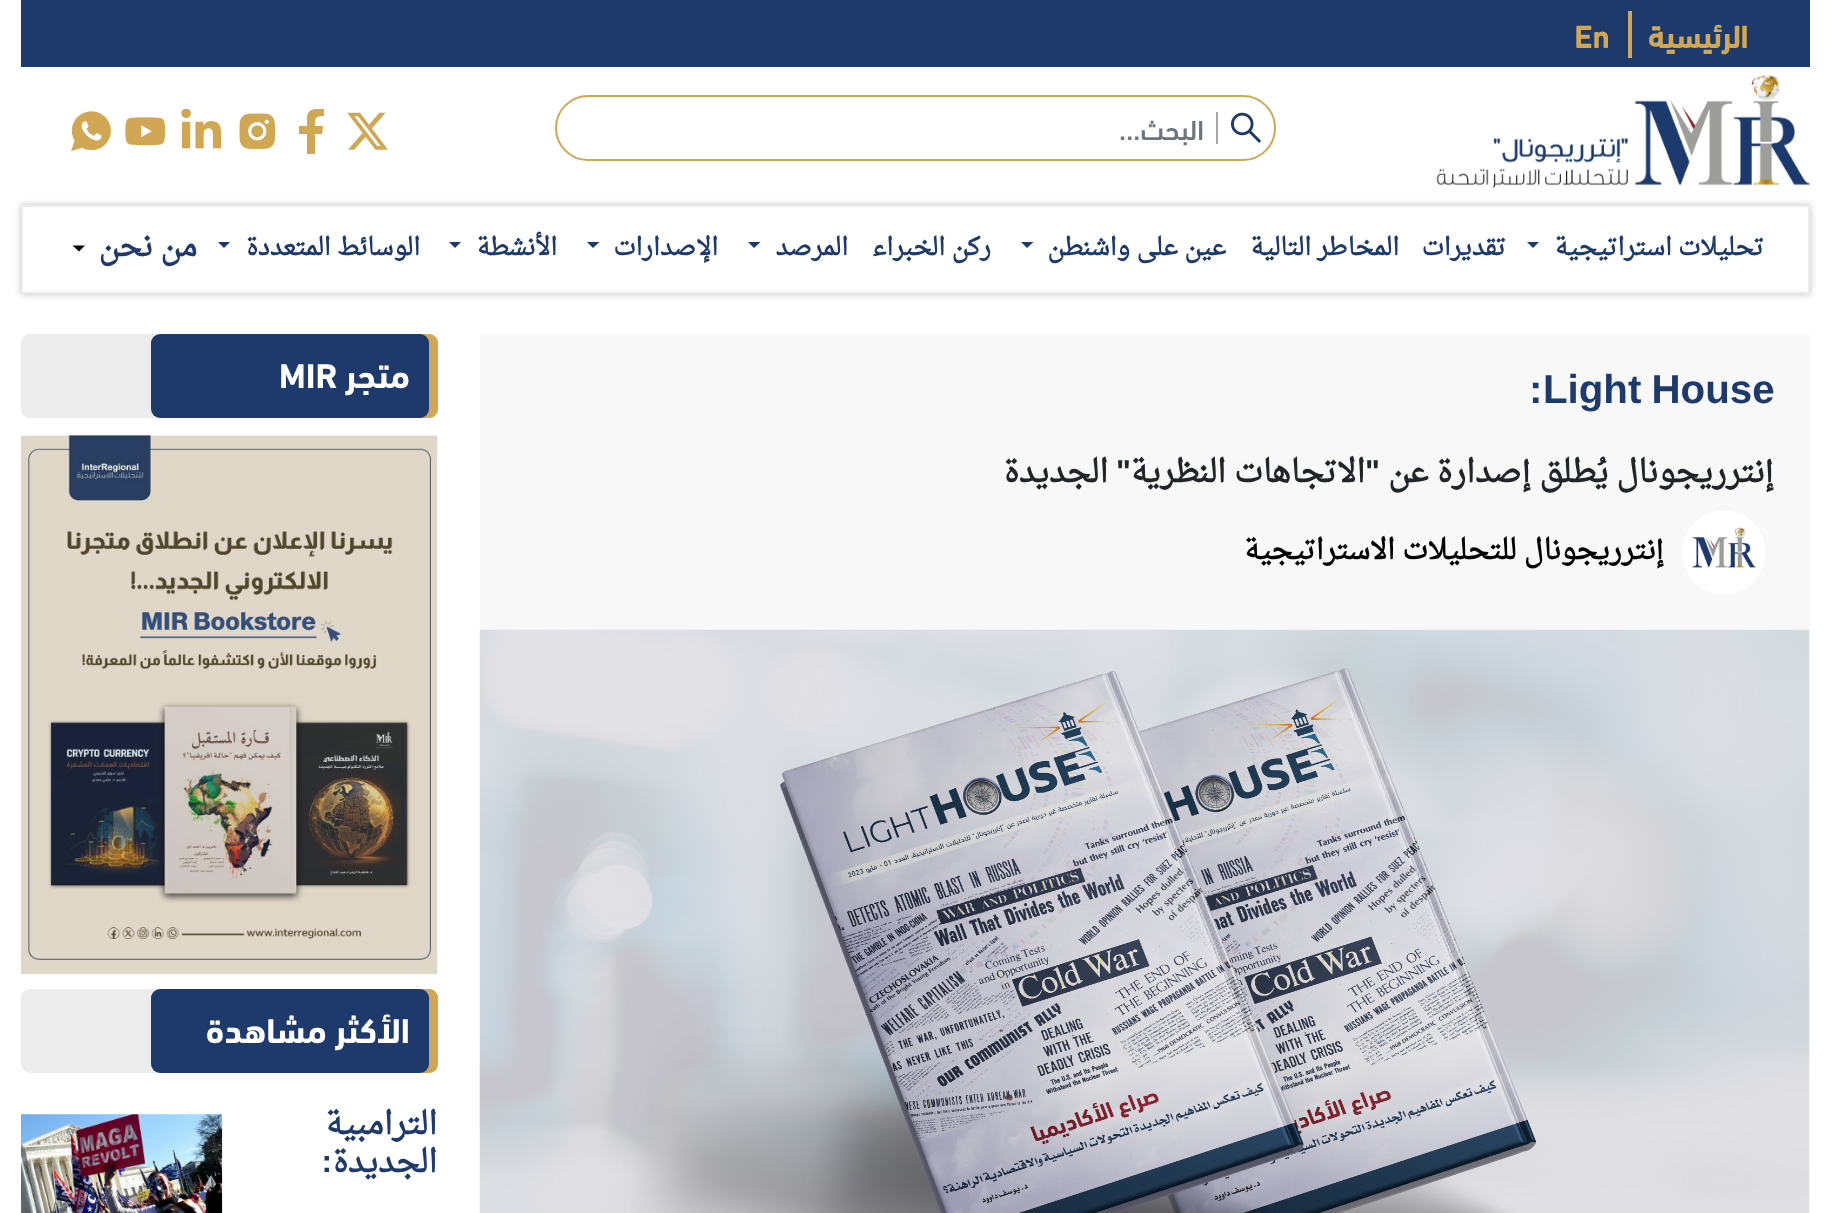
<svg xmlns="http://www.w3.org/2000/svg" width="1830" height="1213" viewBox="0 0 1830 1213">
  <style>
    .t1 { font: bold 31.5px 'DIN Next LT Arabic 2'; direction: rtl; fill: #d1a753; }
    .t2 { font: bold 31.5px 'DIN Next LT Arabic 2'; fill: #d1a753; }
    .t3 { font: 500 28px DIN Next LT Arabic; direction: rtl; fill: #6c757d; }
    .t4 { font: bold 24.5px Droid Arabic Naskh; direction: rtl; fill: #1e3a6c; }
    .t5 { font: bold 30px Droid Arabic Naskh; direction: rtl; fill: #1e3a6c; }
    .t6 { font: bold 40.25px Liberation Sans; fill: #1e3a6c; }
    .t7 { font: bold 31.5px Droid Arabic Naskh; direction: rtl; fill: #212529; }
    .t8 { font: bold 31.5px Liberation Sans; direction: rtl; fill: #212529; }
    .t9 { font: bold 28px Droid Arabic Naskh; direction: rtl; fill: #000; }
    .t10 { font: bold 35px DIN Next LT Arabic; direction: rtl; fill: #fff; }
    .t11 { font: bold 35px DIN Next LT Arabic; fill: #fff; }
    .t12 { font: bold 31.5px Droid Arabic Naskh; direction: rtl; fill: #1e3a6c; }
    .t13 { font: bold 31.5px Liberation Sans; direction: rtl; fill: #1e3a6c; }
  </style>
  <defs>
    <clipPath id="clip1"><rect x="289" y="109" width="45" height="45"/></clipPath>
    <clipPath id="clip2"><path d="M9 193H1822V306H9ZM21 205H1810V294H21Z" clip-rule="evenodd"/></clipPath>
  </defs>
  <rect width="100%" height="100%" fill="#fff"/>
  <rect x="21" y="0" width="1789" height="67" fill="#1e3a6c"/>
  <rect x="1628" y="11" width="4" height="47" fill="#d1a753"/>
  <text x="1748" y="48" class="t1">الرئيسية</text>
  <text x="1574" y="48" class="t2">En</text>
  <image x="1436" y="75" width="374" height="113" href="images/1.png"/>
  <rect x="556" y="96" width="719" height="64" rx="32" fill="none" stroke="#d1a753" stroke-width="2"/>
  <image x="1231" y="112" width="30" height="31" href="images/2.png"/>
  <rect x="1216" y="112" width="2" height="32" fill="#a7a7a7"/>
  <text x="1204" y="140" class="t3">البحث...</text>
  <image x="347" y="112" width="41" height="38" href="images/3.png"/>
  <g clip-path="url(#clip1)">
    <path d="M322 134L323 126H315C315 118 315 116 324 116V109C317 108 308 108 307 117V126H299V134H307V154H315V134Z" fill="#d1a753"/>
  </g>
  <image x="239" y="113" width="36" height="36" href="images/4.png"/>
  <image x="181" y="109" width="41" height="40" href="images/5.png"/>
  <image x="125" y="117" width="41" height="29" href="images/6.png"/>
  <image x="71" y="111" width="40" height="41" href="images/7.png"/>
  <g clip-path="url(#clip2)">
    <rect x="21" y="205" width="1789" height="89" fill="#00000040" filter="blur(3.5px)"/>
  </g>
  <rect x="22" y="206" width="1787" height="87" fill="none" stroke="#ececec" stroke-width="2"/>
  <text x="1764" y="255" class="t4">تحليلات استراتيجية</text>
  <path d="M1527 242L1533 248L1539 242Z" fill="#1e3a6c"/>
  <text x="1506" y="255" class="t4">تقديرات</text>
  <text x="1399" y="255" class="t4">المخاطر التالية</text>
  <text x="1226" y="255" class="t4">عين على واشنطن</text>
  <path d="M1021 242L1027 248L1033.5 242Z" fill="#1e3a6c"/>
  <text x="991" y="255" class="t4">ركن الخبراء</text>
  <text x="848" y="255" class="t4">المرصد</text>
  <path d="M748 242L754 248L760.5 242Z" fill="#1e3a6c"/>
  <text x="718" y="255" class="t4">الإصدارات</text>
  <path d="M587 242L593 248L599.5 242Z" fill="#1e3a6c"/>
  <text x="557" y="255" class="t4">الأنشطة</text>
  <path d="M449 242L455 248L461 242Z" fill="#1e3a6c"/>
  <text x="420" y="255" class="t4">الوسائط المتعددة</text>
  <path d="M218 242L224 248L230 242Z" fill="#1e3a6c"/>
  <text x="197" y="256" class="t5">من نحن</text>
  <path d="M72.5 245.5L79 251.5L85 245.5Z" fill="#000"/>
  <rect x="480" y="334" width="1330" height="296" fill="#f8f8f8"/>
  <text x="1543" y="403" word-spacing="-1" class="t6">Light House</text>
  <text x="1529" y="403" class="t6">:</text>
  <text x="1774" y="482" class="t7">إنترريجونال يُطلق إصدارة عن</text>
  <text x="1380" y="482" class="t8">"</text>
  <text x="1365" y="482" class="t7">الاتجاهات النظرية</text>
  <text x="1131" y="482" class="t8">"</text>
  <text x="1108" y="482" class="t7">الجديدة</text>
  <image x="1682" y="511" width="83" height="83" href="images/8.png"/>
  <text x="1664" y="559" class="t9">إنترريجونال للتحليلات الاستراتيجية</text>
  <image x="479" y="629" width="1331" height="584" href="images/9.png"/>
  <rect x="21" y="334" width="417" height="84" rx="9" fill="#ececec"/>
  <path d="M359 334H429C434 334 438 338 438 343V409C438 414 434 418 429 418H359Z" fill="#d1a753"/>
  <rect x="151" y="334" width="278" height="84" rx="9" fill="#1e3a6c"/>
  <text x="410" y="388" class="t10">متجر</text>
  <text x="279" y="388" class="t11">MIR</text>
  <image x="21" y="435" width="417" height="540" href="images/10.png"/>
  <rect x="21" y="989" width="417" height="84" rx="9" fill="#ececec"/>
  <path d="M359 989H429C434 989 438 993 438 998V1064C438 1069 434 1073 429 1073H359Z" fill="#d1a753"/>
  <rect x="151" y="989" width="278" height="84" rx="9" fill="#1e3a6c"/>
  <text x="410" y="1043" class="t10">الأكثر مشاهدة</text>
  <text x="437" y="1134" class="t12">الترامبية</text>
  <text x="437" y="1172" class="t12">الجديدة</text>
  <text x="332" y="1172" class="t13">:</text>
  <image x="21" y="1114" width="202" height="99" href="images/11.png"/>
</svg>
